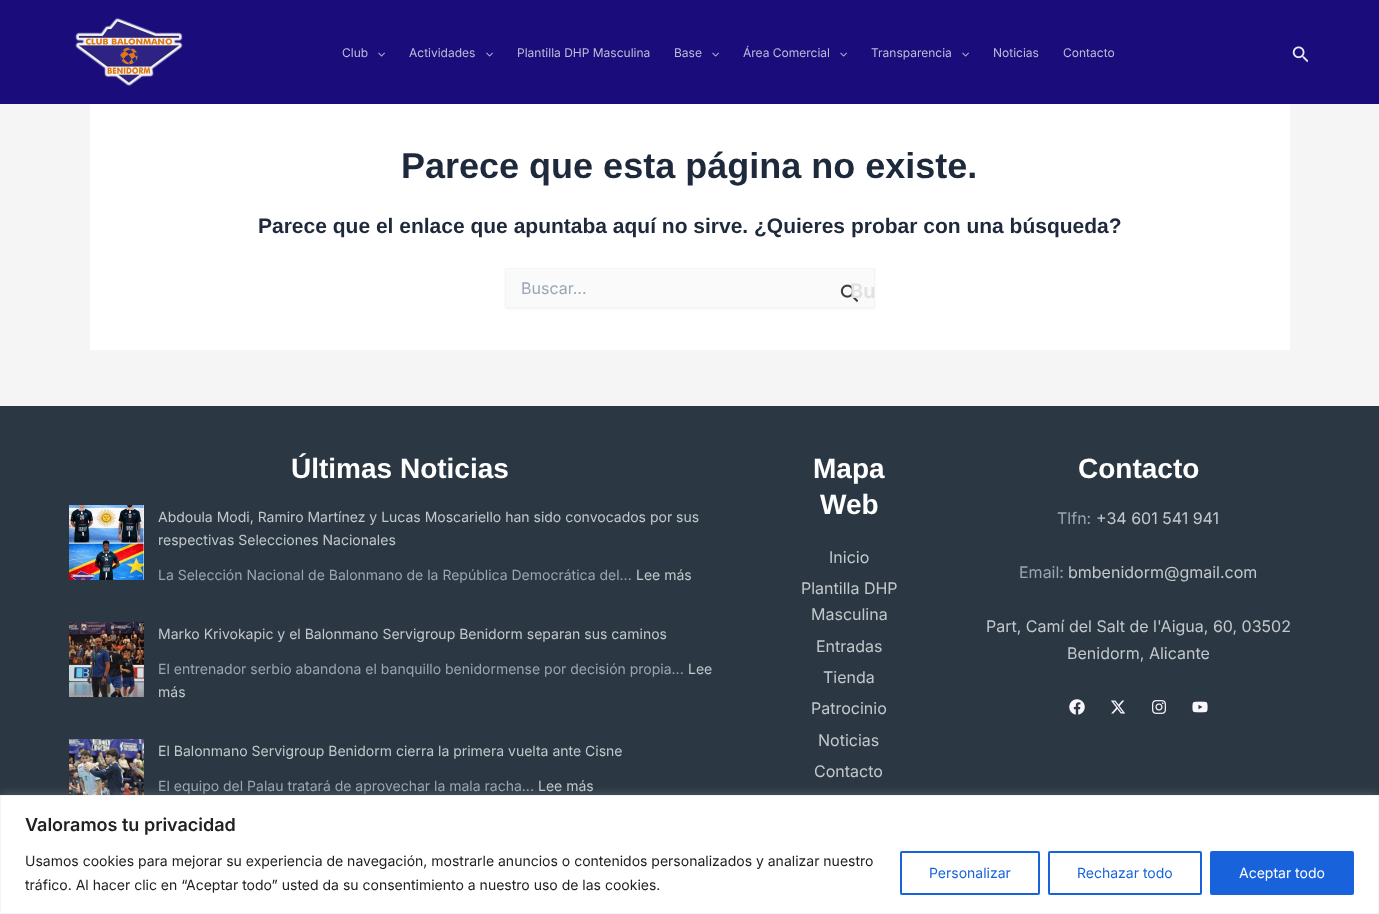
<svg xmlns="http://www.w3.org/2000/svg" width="1379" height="914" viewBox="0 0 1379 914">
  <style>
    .t1 { font: 12px Inter; fill: #bebdd9; }
    .t2 { font: bold 36px Liberation Sans; fill: #1e293b; }
    .t3 { font: bold 21px Liberation Sans; fill: #1e293b; }
    .t4 { font: 16px Inter; fill: #9aa6b4; }
    .t5 { font: 600 20px Inter; fill: #e1e1e1; }
    .t6 { font: bold 28px Liberation Sans; fill: #fff; }
    .t7 { font: 14px Inter; fill: #c2c8cc; }
    .t8 { font: 14px Inter; fill: #9aa6b4; }
    .t9 { font: 16px Inter; fill: #c2c8cc; }
    .t10 { font: 600 18px Inter; fill: #212121; }
    .t11 { font: 14px Inter; fill: #212121; }
    .t12 { font: 14px Inter; fill: #1863dc; }
    .t13 { font: 14px Inter; fill: #fff; }
  </style>
  <rect width="100%" height="100%" fill="#f5f5f5"/>
  <rect x="0" y="0" width="1379" height="104" fill="#1b0c7b"/>
  <image x="75" y="18" width="108" height="68" href="images/1.png"/>
  <text x="342" y="57" class="t1">Club</text>
  <image x="378" y="52" width="7" height="5" href="images/2.png"/>
  <text x="409" y="57" class="t1">Actividades</text>
  <image x="486" y="52" width="7" height="5" href="images/2.png"/>
  <text x="517" y="57" class="t1">Plantilla DHP Masculina</text>
  <text x="674" y="57" class="t1">Base</text>
  <image x="712" y="52" width="7" height="5" href="images/2.png"/>
  <text x="743" y="57" class="t1">Área Comercial</text>
  <image x="840" y="52" width="7" height="5" href="images/2.png"/>
  <text x="871" y="57" class="t1">Transparencia</text>
  <image x="962" y="52" width="7" height="5" href="images/2.png"/>
  <text x="993" y="57" class="t1">Noticias</text>
  <text x="1063" y="57" class="t1">Contacto</text>
  <image x="1292" y="46" width="16" height="17" href="images/3.png"/>
  <rect x="90" y="104" width="1200" height="246" fill="#fff"/>
  <text x="401" y="178" class="t2">Parece que esta página no existe.</text>
  <text x="258" y="233" class="t3">Parece que el enlace que apuntaba aquí no sirve. ¿Quieres probar con una búsqueda?</text>
  <rect x="505" y="269" width="370" height="40" rx="2" fill="#0000000d" filter="blur(1px)"/>
  <rect x="505.5" y="268.5" width="369" height="39" rx="1.5" fill="#fafafa" stroke="#f2f5f7"/>
  <text x="521" y="294" class="t4">Buscar...</text>
  <image x="840" y="284" width="18" height="18" href="images/4.png"/>
  <text x="850" y="298" class="t5">Bu</text>
  <rect x="0" y="406" width="1379" height="389" fill="#2b3843"/>
  <text x="291" y="478" class="t6">Últimas Noticias</text>
  <image x="69" y="505" width="75" height="75" href="images/5.png"/>
  <text x="158" y="522" class="t7">Abdoula Modi, Ramiro Martínez y Lucas Moscariello han sido convocados por sus</text>
  <text x="158" y="545" class="t7">respectivas Selecciones Nacionales</text>
  <text x="158" y="580" class="t8">La Selección Nacional de Balonmano de la República Democrática del...</text>
  <text x="636" y="580" class="t7">Lee más</text>
  <image x="69" y="622" width="75" height="75" href="images/6.png"/>
  <text x="158" y="639" class="t7">Marko Krivokapic y el Balonmano Servigroup Benidorm separan sus caminos</text>
  <text x="158" y="674" class="t8">El entrenador serbio abandona el banquillo benidormense por decisión propia...</text>
  <text x="688" y="674" class="t7">Lee</text>
  <text x="158" y="697" class="t7">más</text>
  <image x="69" y="739" width="75" height="56" href="images/7.png"/>
  <text x="158" y="756" class="t7">El Balonmano Servigroup Benidorm cierra la primera vuelta ante Cisne</text>
  <text x="158" y="791" class="t8">El equipo del Palau tratará de aprovechar la mala racha...</text>
  <text x="538" y="791" class="t7">Lee más</text>
  <text x="813" y="478" class="t6">Mapa</text>
  <text x="820" y="514" class="t6">Web</text>
  <text x="829" y="563" class="t9">Inicio</text>
  <text x="801" y="594" class="t9">Plantilla DHP</text>
  <text x="811" y="620" class="t9">Masculina</text>
  <text x="816" y="652" class="t9">Entradas</text>
  <text x="823" y="683" class="t9">Tienda</text>
  <text x="811" y="714" class="t9">Patrocinio</text>
  <text x="818" y="746" class="t9">Noticias</text>
  <text x="814" y="777" class="t9">Contacto</text>
  <text x="1078" y="478" class="t6">Contacto</text>
  <text x="1057" y="524" class="t4">Tlfn:</text>
  <text x="1096" y="524" class="t9">+34 601 541 941</text>
  <text x="1019" y="578" class="t4">Email:</text>
  <text x="1068" y="578" class="t9">bmbenidorm@gmail.com</text>
  <text x="986" y="632" class="t9">Part, Camí del Salt de l'Aigua, 60, 03502</text>
  <text x="1067" y="659" class="t9">Benidorm, Alicante</text>
  <image x="1069" y="699" width="16" height="16" href="images/8.png"/>
  <image x="1111" y="700" width="15" height="14" href="images/9.png"/>
  <image x="1152" y="700" width="14" height="14" href="images/10.png"/>
  <image x="1192" y="701" width="16" height="12" href="images/11.png"/>
  <rect x="0" y="794" width="1379" height="119" fill="#acabab4d" filter="blur(5px)"/>
  <rect x="0.5" y="795.5" width="1378" height="118" fill="#fff" stroke="#f4f4f4"/>
  <text x="25" y="831" class="t10">Valoramos tu privacidad</text>
  <text x="25" y="866" class="t11">Usamos cookies para mejorar su experiencia de navegación, mostrarle anuncios o contenidos personalizados y analizar nuestro</text>
  <text x="25" y="890" class="t11">tráfico. Al hacer clic en “Aceptar todo” usted da su consentimiento a nuestro uso de las cookies.</text>
  <rect x="901" y="852" width="138" height="42" rx="1" fill="none" stroke="#1863dc" stroke-width="2"/>
  <text x="929" y="878" class="t12">Personalizar</text>
  <rect x="1049" y="852" width="152" height="42" rx="1" fill="none" stroke="#1863dc" stroke-width="2"/>
  <text x="1077" y="878" class="t12">Rechazar todo</text>
  <rect x="1211" y="852" width="142" height="42" rx="1" fill="#1863dc" stroke="#1863dc" stroke-width="2"/>
  <text x="1239" y="878" class="t13">Aceptar todo</text>
</svg>
